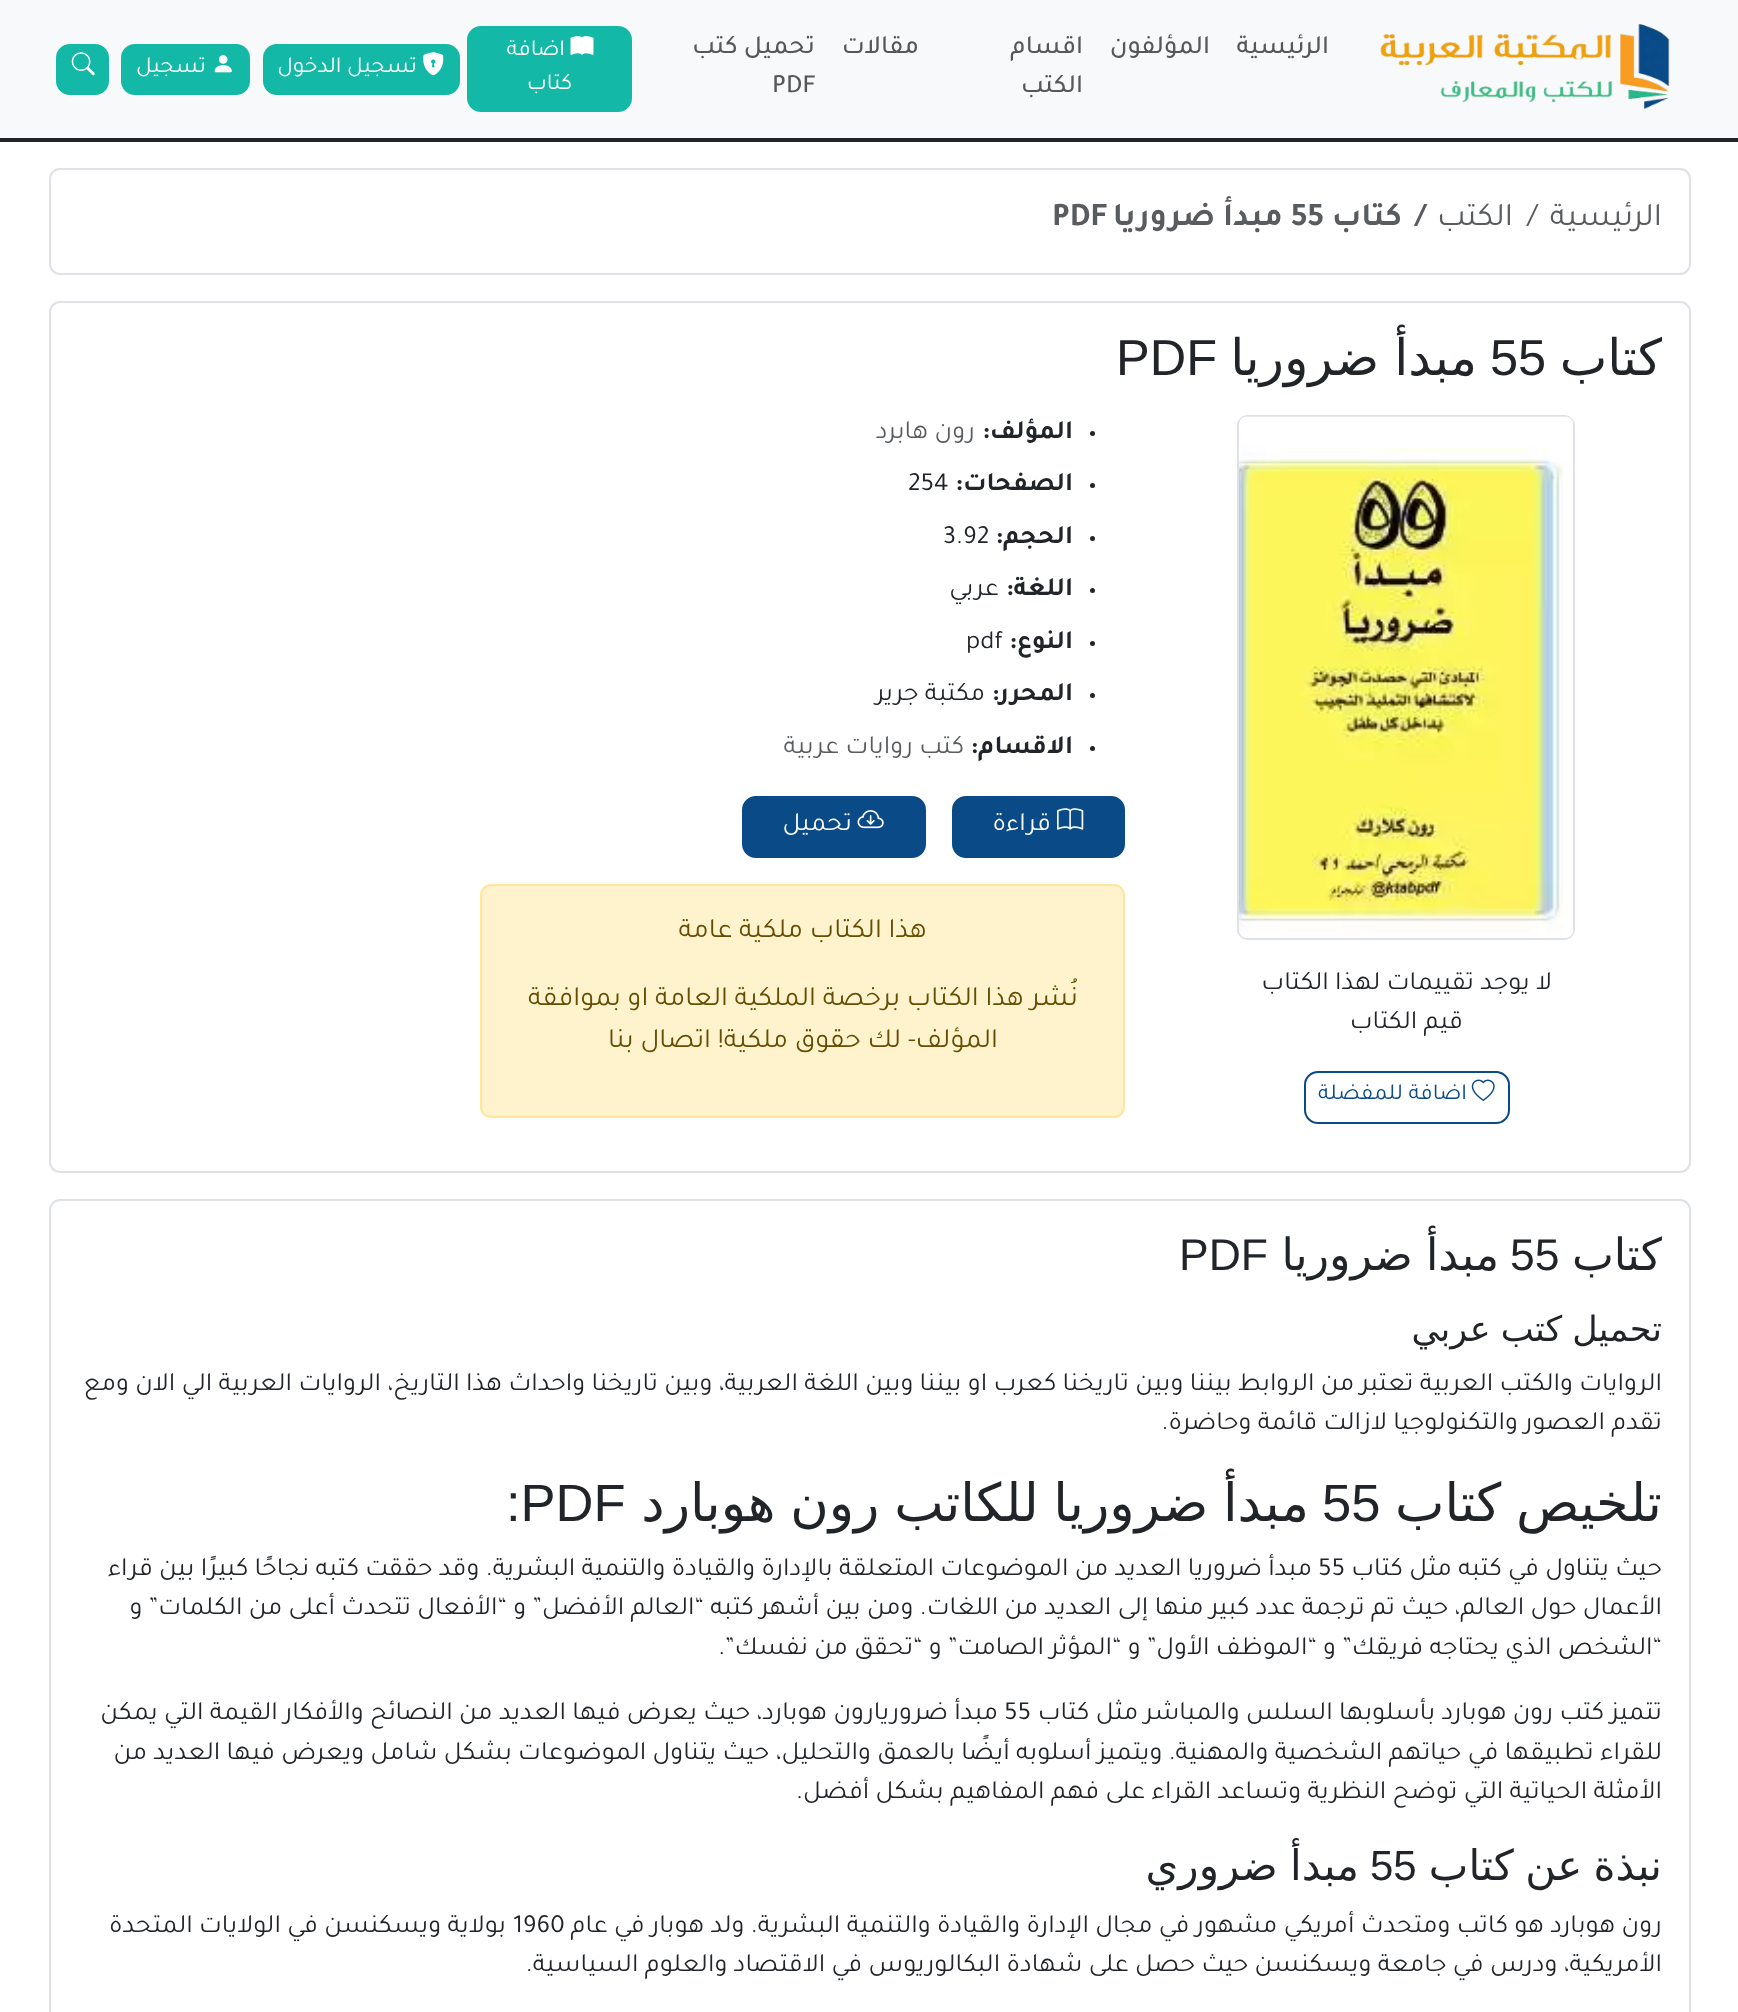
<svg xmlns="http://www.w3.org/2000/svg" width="1738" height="2012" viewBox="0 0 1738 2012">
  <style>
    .t1 { font: 500 26.25px Tajawal; direction: rtl; fill: #575758; }
    .t2 { font: 500 26.25px Tajawal; fill: #575758; }
    .t3 { font: 23px Tajawal; direction: rtl; fill: #fff; }
    .t4 { font: 33px Tajawal; direction: rtl; fill: #595c5f; }
    .t5 { font: 33px Tajawal; fill: #595c5f; }
    .t6 { font: bold 33px Tajawal; fill: #595c5f; }
    .t7 { font: bold 33px Tajawal; direction: rtl; fill: #595c5f; }
    .t8 { font: 50.5px DejaVu Sans; direction: rtl; fill: #212529; }
    .t9 { font: 50.5px Liberation Sans; fill: #212529; }
    .t10 { font: 26.25px Tajawal; direction: rtl; fill: #212529; }
    .t11 { font: 23px Tajawal; direction: rtl; fill: #094a87; }
    .t12 { font: bold 26.25px Tajawal; direction: rtl; fill: #212529; }
    .t13 { font: 26.25px Tajawal; direction: rtl; fill: #595c5f; }
    .t14 { font: 26.25px Tajawal; fill: #212529; }
    .t15 { font: 26.25px Tajawal; direction: rtl; fill: #fff; }
    .t16 { font: 28px Tajawal; direction: rtl; fill: #664d03; }
    .t17 { font: 44.5px DejaVu Sans; direction: rtl; fill: #212529; }
    .t18 { font: 44.5px Liberation Sans; fill: #212529; }
    .t19 { font: 35px DejaVu Sans; direction: rtl; fill: #212529; }
    .t20 { font: 52.5px DejaVu Sans; direction: rtl; fill: #212529; }
    .t21 { font: 52.5px Liberation Sans; fill: #212529; }
    .t22 { font: 42px DejaVu Sans; direction: rtl; fill: #212529; }
    .t23 { font: 42px Liberation Sans; fill: #212529; }
  </style>
  <rect width="100%" height="100%" fill="#fff"/>
  <rect x="0" y="0" width="1738" height="138" fill="#f8f9fa"/>
  <image x="1380" y="24" width="290" height="86" href="images/1.png"/>
  <text x="1329" y="53" class="t1">الرئيسية</text>
  <text x="1210" y="53" class="t1">المؤلفون</text>
  <text x="1083" y="53" class="t1">اقسام</text>
  <text x="1083" y="92" class="t1">الكتب</text>
  <text x="919" y="53" class="t1">مقالات</text>
  <text x="815" y="53" class="t1">تحميل كتب</text>
  <text x="772" y="92" class="t2">PDF</text>
  <rect x="468" y="27" width="163" height="84" rx="13" fill="#14b8a6" stroke="#14b8a6" stroke-width="2"/>
  <image x="570" y="36" width="24" height="19" href="images/2.png"/>
  <text x="565" y="55" class="t3">اضافة</text>
  <text x="572" y="89" class="t3">كتاب</text>
  <rect x="264" y="45" width="195" height="49" rx="13" fill="#14b8a6" stroke="#14b8a6" stroke-width="2"/>
  <image x="423" y="52" width="21" height="24" href="images/3.png"/>
  <text x="417" y="72" class="t3">تسجيل الدخول</text>
  <rect x="122" y="45" width="127" height="49" rx="13" fill="#14b8a6" stroke="#14b8a6" stroke-width="2"/>
  <image x="214" y="55" width="18" height="18" href="images/4.png"/>
  <text x="206" y="72" class="t3">تسجيل</text>
  <rect x="57" y="45" width="51" height="49" rx="13" fill="#14b8a6" stroke="#14b8a6" stroke-width="2"/>
  <image x="71" y="52" width="24" height="24" href="images/5.png"/>
  <rect x="0" y="138" width="1738" height="4" fill="#212529"/>
  <rect x="50" y="169" width="1640" height="105" rx="10" fill="none" stroke="#dee2e6" stroke-width="2"/>
  <text x="1662" y="225" class="t4">الرئيسية</text>
  <text x="1527" y="225" class="t5">/</text>
  <text x="1513" y="225" class="t4">الكتب</text>
  <text x="1415" y="225" class="t6">/</text>
  <text x="1402" y="225" class="t7">كتاب</text>
  <text x="1291" y="225" class="t6">55</text>
  <text x="1283" y="225" class="t7">مبدأ ضروريا</text>
  <text x="1052" y="225" class="t6">PDF</text>
  <rect x="50" y="302" width="1640" height="870" rx="10" fill="none" stroke="#dee2e6" stroke-width="2"/>
  <text x="1662" y="375" class="t8">كتاب</text>
  <text x="1490" y="375" class="t9">55</text>
  <text x="1477" y="375" word-spacing="-1" class="t8">مبدأ ضروريا</text>
  <text x="1116" y="375" class="t9">PDF</text>
  <rect x="1238" y="416" width="336" height="523" rx="10" fill="none" stroke="#dee2e6" stroke-width="2"/>
  <image x="1239" y="416" width="334" height="522" href="images/6.png"/>
  <text x="1552" y="989" class="t10">لا يوجد تقييمات لهذا الكتاب</text>
  <text x="1463" y="1028" class="t10">قيم الكتاب</text>
  <rect x="1305" y="1072" width="204" height="51" rx="13" fill="none" stroke="#094a87" stroke-width="2"/>
  <image x="1471" y="1079" width="24" height="22" href="images/7.png"/>
  <text x="1467" y="1099" class="t11">اضافة للمفضلة</text>
  <circle cx="1092.5" cy="433.5" r="2.5" fill="#212529"/>
  <text x="1073" y="438" class="t12">المؤلف:</text>
  <text x="975" y="438" class="t13">رون هابرد</text>
  <circle cx="1092.5" cy="485.5" r="2.5" fill="#212529"/>
  <text x="1073" y="490" class="t12">الصفحات:</text>
  <text x="908" y="490" class="t14">254</text>
  <circle cx="1092.5" cy="538.5" r="2.5" fill="#212529"/>
  <text x="1073" y="543" class="t12">الحجم:</text>
  <text x="943" y="543" class="t14">3.92</text>
  <circle cx="1092.5" cy="590.5" r="2.5" fill="#212529"/>
  <text x="1073" y="595" class="t12">اللغة:</text>
  <text x="999" y="595" class="t10">عربي</text>
  <circle cx="1092.5" cy="643.5" r="2.5" fill="#212529"/>
  <text x="1073" y="648" class="t12">النوع:</text>
  <text x="966" y="648" class="t14">pdf</text>
  <circle cx="1092.5" cy="695.5" r="2.5" fill="#212529"/>
  <text x="1073" y="700" class="t12">المحرر:</text>
  <text x="985" y="700" class="t10">مكتبة جرير</text>
  <circle cx="1092.5" cy="748.5" r="2.5" fill="#212529"/>
  <text x="1073" y="753" class="t12">الاقسام:</text>
  <text x="964" y="753" class="t13">كتب روايات عربية</text>
  <rect x="953" y="797" width="171" height="60" rx="13" fill="#094a87" stroke="#094a87" stroke-width="2"/>
  <image x="1057" y="808" width="27" height="22" href="images/8.png"/>
  <text x="1051" y="830" class="t15">قراءة</text>
  <rect x="743" y="797" width="182" height="60" rx="13" fill="#094a87" stroke="#094a87" stroke-width="2"/>
  <image x="857" y="810" width="27" height="19" href="images/9.png"/>
  <text x="852" y="830" class="t15">تحميل</text>
  <rect x="481" y="885" width="643" height="232" rx="10" fill="#fff3cd" stroke="#ffe69c" stroke-width="2"/>
  <text x="927" y="937" class="t16">هذا الكتاب ملكية عامة</text>
  <text x="1078" y="1005" class="t16">نُشر هذا الكتاب برخصة الملكية العامة او بموافقة</text>
  <text x="998" y="1047" class="t16">المؤلف- لك حقوق ملكية!</text>
  <text x="711" y="1047" class="t16">اتصال بنا</text>
  <rect x="50" y="1200" width="1640" height="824" rx="10" fill="none" stroke="#dee2e6" stroke-width="2"/>
  <text x="1662" y="1270" class="t17">كتاب</text>
  <text x="1510" y="1270" class="t18">55</text>
  <text x="1499" y="1270" word-spacing="-1" class="t17">مبدأ ضروريا</text>
  <text x="1179" y="1270" class="t18">PDF</text>
  <text x="1662" y="1341" word-spacing="-1" class="t19">تحميل كتب عربي</text>
  <text x="1662" y="1390" class="t10">الروايات والكتب العربية تعتبر من الروابط بيننا وبين تاريخنا كعرب او بيننا وبين اللغة العربية، وبين تاريخنا واحداث هذا التاريخ، الروايات العربية الي الان ومع</text>
  <text x="1662" y="1429" class="t10">تقدم العصور والتكنولوجيا لازالت قائمة وحاضرة.</text>
  <text x="1662" y="1521" word-spacing="-2" class="t20">تلخيص كتاب</text>
  <text x="1322" y="1521" class="t21">55</text>
  <text x="1309" y="1521" word-spacing="-2" class="t20">مبدأ ضروريا للكاتب رون هوبارد</text>
  <text x="506" y="1521" class="t21">:PDF</text>
  <text x="1662" y="1575" class="t10">حيث يتناول في كتبه مثل كتاب</text>
  <text x="1318" y="1575" class="t14">55</text>
  <text x="1312" y="1575" class="t10">مبدأ ضروريا العديد من الموضوعات المتعلقة بالإدارة والقيادة والتنمية البشرية. وقد حققت كتبه نجاحًا كبيرًا بين قراء</text>
  <text x="1662" y="1614" class="t10">الأعمال حول العالم، حيث تم ترجمة عدد كبير منها إلى العديد من اللغات. ومن بين أشهر كتبه “العالم الأفضل” و “الأفعال تتحدث أعلى من الكلمات” و</text>
  <text x="1662" y="1654" class="t10">“الشخص الذي يحتاجه فريقك” و “الموظف الأول” و “المؤثر الصامت” و “تحقق من نفسك”.</text>
  <text x="1662" y="1719" class="t10">تتميز كتب رون هوبارد بأسلوبها السلس والمباشر مثل كتاب</text>
  <text x="1004" y="1719" class="t14">55</text>
  <text x="998" y="1719" class="t10">مبدأ ضروريارون هوبارد، حيث يعرض فيها العديد من النصائح والأفكار القيمة التي يمكن</text>
  <text x="1662" y="1759" class="t10">للقراء تطبيقها في حياتهم الشخصية والمهنية. ويتميز أسلوبه أيضًا بالعمق والتحليل، حيث يتناول الموضوعات بشكل شامل ويعرض فيها العديد من</text>
  <text x="1662" y="1798" class="t10">الأمثلة الحياتية التي توضح النظرية وتساعد القراء على فهم المفاهيم بشكل أفضل.</text>
  <text x="1662" y="1880" word-spacing="-2" class="t22">نبذة عن كتاب</text>
  <text x="1370" y="1880" class="t23">55</text>
  <text x="1359" y="1880" word-spacing="-1" class="t22">مبدأ ضروري</text>
  <text x="1662" y="1932" class="t10">رون هوبارد</text>
  <text x="1544" y="1932" class="t10">هو كاتب ومتحدث أمريكي مشهور في مجال الإدارة والقيادة والتنمية البشرية. ولد هوبار في عام</text>
  <text x="513" y="1932" class="t14">1960</text>
  <text x="506" y="1932" class="t10">بولاية ويسكنسن في الولايات المتحدة</text>
  <text x="1662" y="1971" class="t10">الأمريكية، ودرس في جامعة ويسكنسن حيث حصل على شهادة البكالوريوس في الاقتصاد والعلوم السياسية.</text>
</svg>
